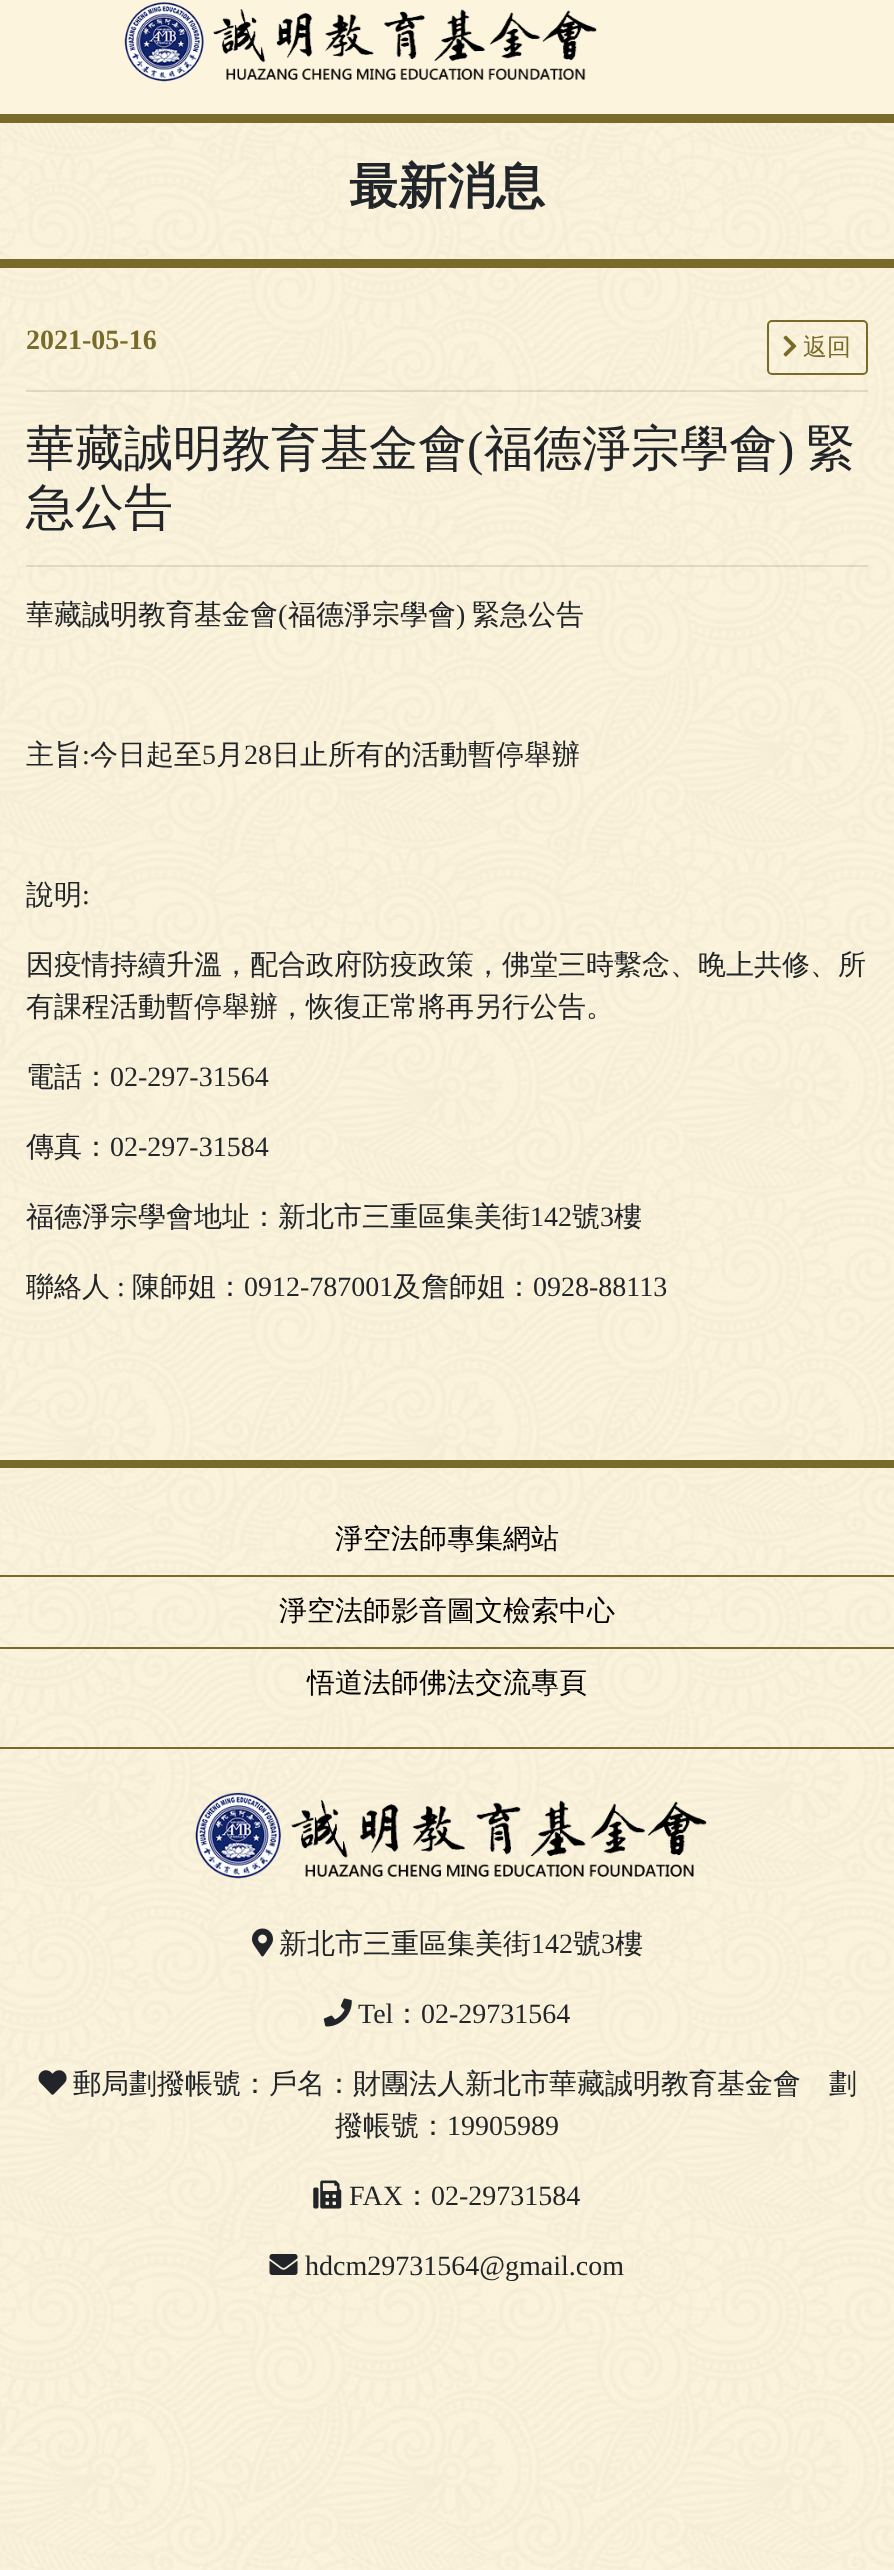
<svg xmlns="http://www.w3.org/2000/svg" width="894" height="2570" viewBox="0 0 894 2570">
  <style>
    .t1 { font: bold 49px WenQuanYi Zen Hei; fill: #212529; }
    .t2 { font: bold 28px Liberation Serif; fill: #786b2a; }
    .t3 { font: 500 24px WenQuanYi Zen Hei; fill: #786b2a; }
    .t4 { font: 500 49px WenQuanYi Zen Hei; fill: #212529; }
    .t5 { font: 49px Liberation Serif; fill: #212529; }
    .t6 { font: 500 28px WenQuanYi Zen Hei; fill: #212529; }
    .t7 { font: 28px Liberation Serif; fill: #212529; }
    .t8 { font: 500 28px WenQuanYi Zen Hei; fill: #000; }
  </style>
  <rect width="100%" height="100%" fill="#fff"/>
  <image x="0" y="2396" width="894" height="174" href="images/1.png"/>
  <image x="0" y="123" width="894" height="2273" href="images/2.png"/>
  <rect x="0" y="0" width="894" height="114" fill="#fcf4dd"/>
  <rect x="0" y="114" width="894" height="9" fill="#786b2a"/>
  <image x="124" y="2" width="473" height="80" href="images/3.png"/>
  <rect x="0" y="259" width="894" height="9" fill="#786b2a"/>
  <text x="349" y="203" class="t1">最新消息</text>
  <text x="26" y="349" class="t2">2021-05-16</text>
  <rect x="768" y="321" width="99" height="53" rx="4" fill="none" stroke="#786b2a" stroke-width="2"/>
  <image x="783" y="335" width="14" height="22" href="images/4.png"/>
  <text x="803" y="355" class="t3">返回</text>
  <rect x="26" y="390" width="842" height="2" fill="#0000001a"/>
  <text x="26" y="465" class="t4">華藏誠明教育基金會</text>
  <text x="467" y="465" class="t5">(</text>
  <text x="484" y="465" class="t4">福德淨宗學會</text>
  <text x="778" y="465" class="t5">)</text>
  <text x="806" y="465" class="t4">緊</text>
  <text x="26" y="524" class="t4">急公告</text>
  <rect x="26" y="565" width="842" height="2" fill="#0000001a"/>
  <text x="26" y="624" class="t6">華藏誠明教育基金會</text>
  <text x="278" y="624" class="t7">(</text>
  <text x="288" y="624" class="t6">福德淨宗學會</text>
  <text x="456" y="624" class="t7">)</text>
  <text x="472" y="624" class="t6">緊急公告</text>
  <text x="26" y="764" class="t6">主旨</text>
  <text x="82" y="764" class="t7">:</text>
  <text x="90" y="764" class="t6">今日起至</text>
  <text x="202" y="764" class="t7">5</text>
  <text x="216" y="764" class="t6">月</text>
  <text x="244" y="764" class="t7">28</text>
  <text x="272" y="764" class="t6">日止所有的活動暫停舉辦</text>
  <text x="26" y="904" class="t6">說明</text>
  <text x="82" y="904" class="t7">:</text>
  <text x="26" y="974" class="t6">因疫情持續升溫，配合政府防疫政策，佛堂三時繫念、晚上共修、所</text>
  <text x="26" y="1016" class="t6">有課程活動暫停舉辦，恢復正常將再另行公告。</text>
  <text x="26" y="1086" class="t6">電話：</text>
  <text x="110" y="1086" class="t7">02-297-31564</text>
  <text x="26" y="1156" class="t6">傳真：</text>
  <text x="110" y="1156" class="t7">02-297-31584</text>
  <text x="26" y="1226" class="t6">福德淨宗學會地址：新北市三重區集美街</text>
  <text x="530" y="1226" class="t7">142</text>
  <text x="572" y="1226" class="t6">號</text>
  <text x="600" y="1226" class="t7">3</text>
  <text x="614" y="1226" class="t6">樓</text>
  <text x="26" y="1296" class="t6">聯絡人</text>
  <text x="117" y="1296" class="t7">:</text>
  <text x="132" y="1296" class="t6">陳師姐：</text>
  <text x="244" y="1296" class="t7">0912-787001</text>
  <text x="393" y="1296" class="t6">及詹師姐：</text>
  <text x="533" y="1296" class="t7">0928-88113</text>
  <rect x="0" y="1460" width="894" height="8" fill="#786b2a"/>
  <text x="335" y="1548" class="t8">淨空法師專集網站</text>
  <rect x="0" y="1575" width="894" height="2" fill="#786b2a"/>
  <text x="279" y="1620" class="t8">淨空法師影音圖文檢索中心</text>
  <rect x="0" y="1647" width="894" height="2" fill="#786b2a"/>
  <text x="307" y="1692" class="t8">悟道法師佛法交流專頁</text>
  <rect x="0" y="1747" width="894" height="2" fill="#786b2a"/>
  <image x="195" y="1792" width="512" height="87" href="images/5.png"/>
  <image x="252" y="1928" width="21" height="29" href="images/6.png"/>
  <text x="279" y="1953" class="t6">新北市三重區集美街</text>
  <text x="531" y="1953" class="t7">142</text>
  <text x="573" y="1953" class="t6">號</text>
  <text x="601" y="1953" class="t7">3</text>
  <text x="615" y="1953" class="t6">樓</text>
  <image x="323" y="1998" width="29" height="29" href="images/7.png"/>
  <text x="358" y="2023" class="t7">Tel</text>
  <text x="393" y="2023" class="t6">：</text>
  <text x="421" y="2023" class="t7">02-29731564</text>
  <image x="38" y="2070" width="29" height="25" href="images/8.png"/>
  <text x="73" y="2093" class="t6">郵局劃撥帳號：戶名：財團法人新北市華藏誠明教育基金會　劃</text>
  <text x="335" y="2135" class="t6">撥帳號：</text>
  <text x="447" y="2135" class="t7">19905989</text>
  <image x="313" y="2180" width="29" height="29" href="images/9.png"/>
  <text x="349" y="2205" class="t7">FAX</text>
  <text x="403" y="2205" class="t6">：</text>
  <text x="431" y="2205" class="t7">02-29731584</text>
  <image x="269" y="2254" width="29" height="21" href="images/10.png"/>
  <text x="305" y="2275" class="t7">hdcm29731564@gmail.com</text>
</svg>
